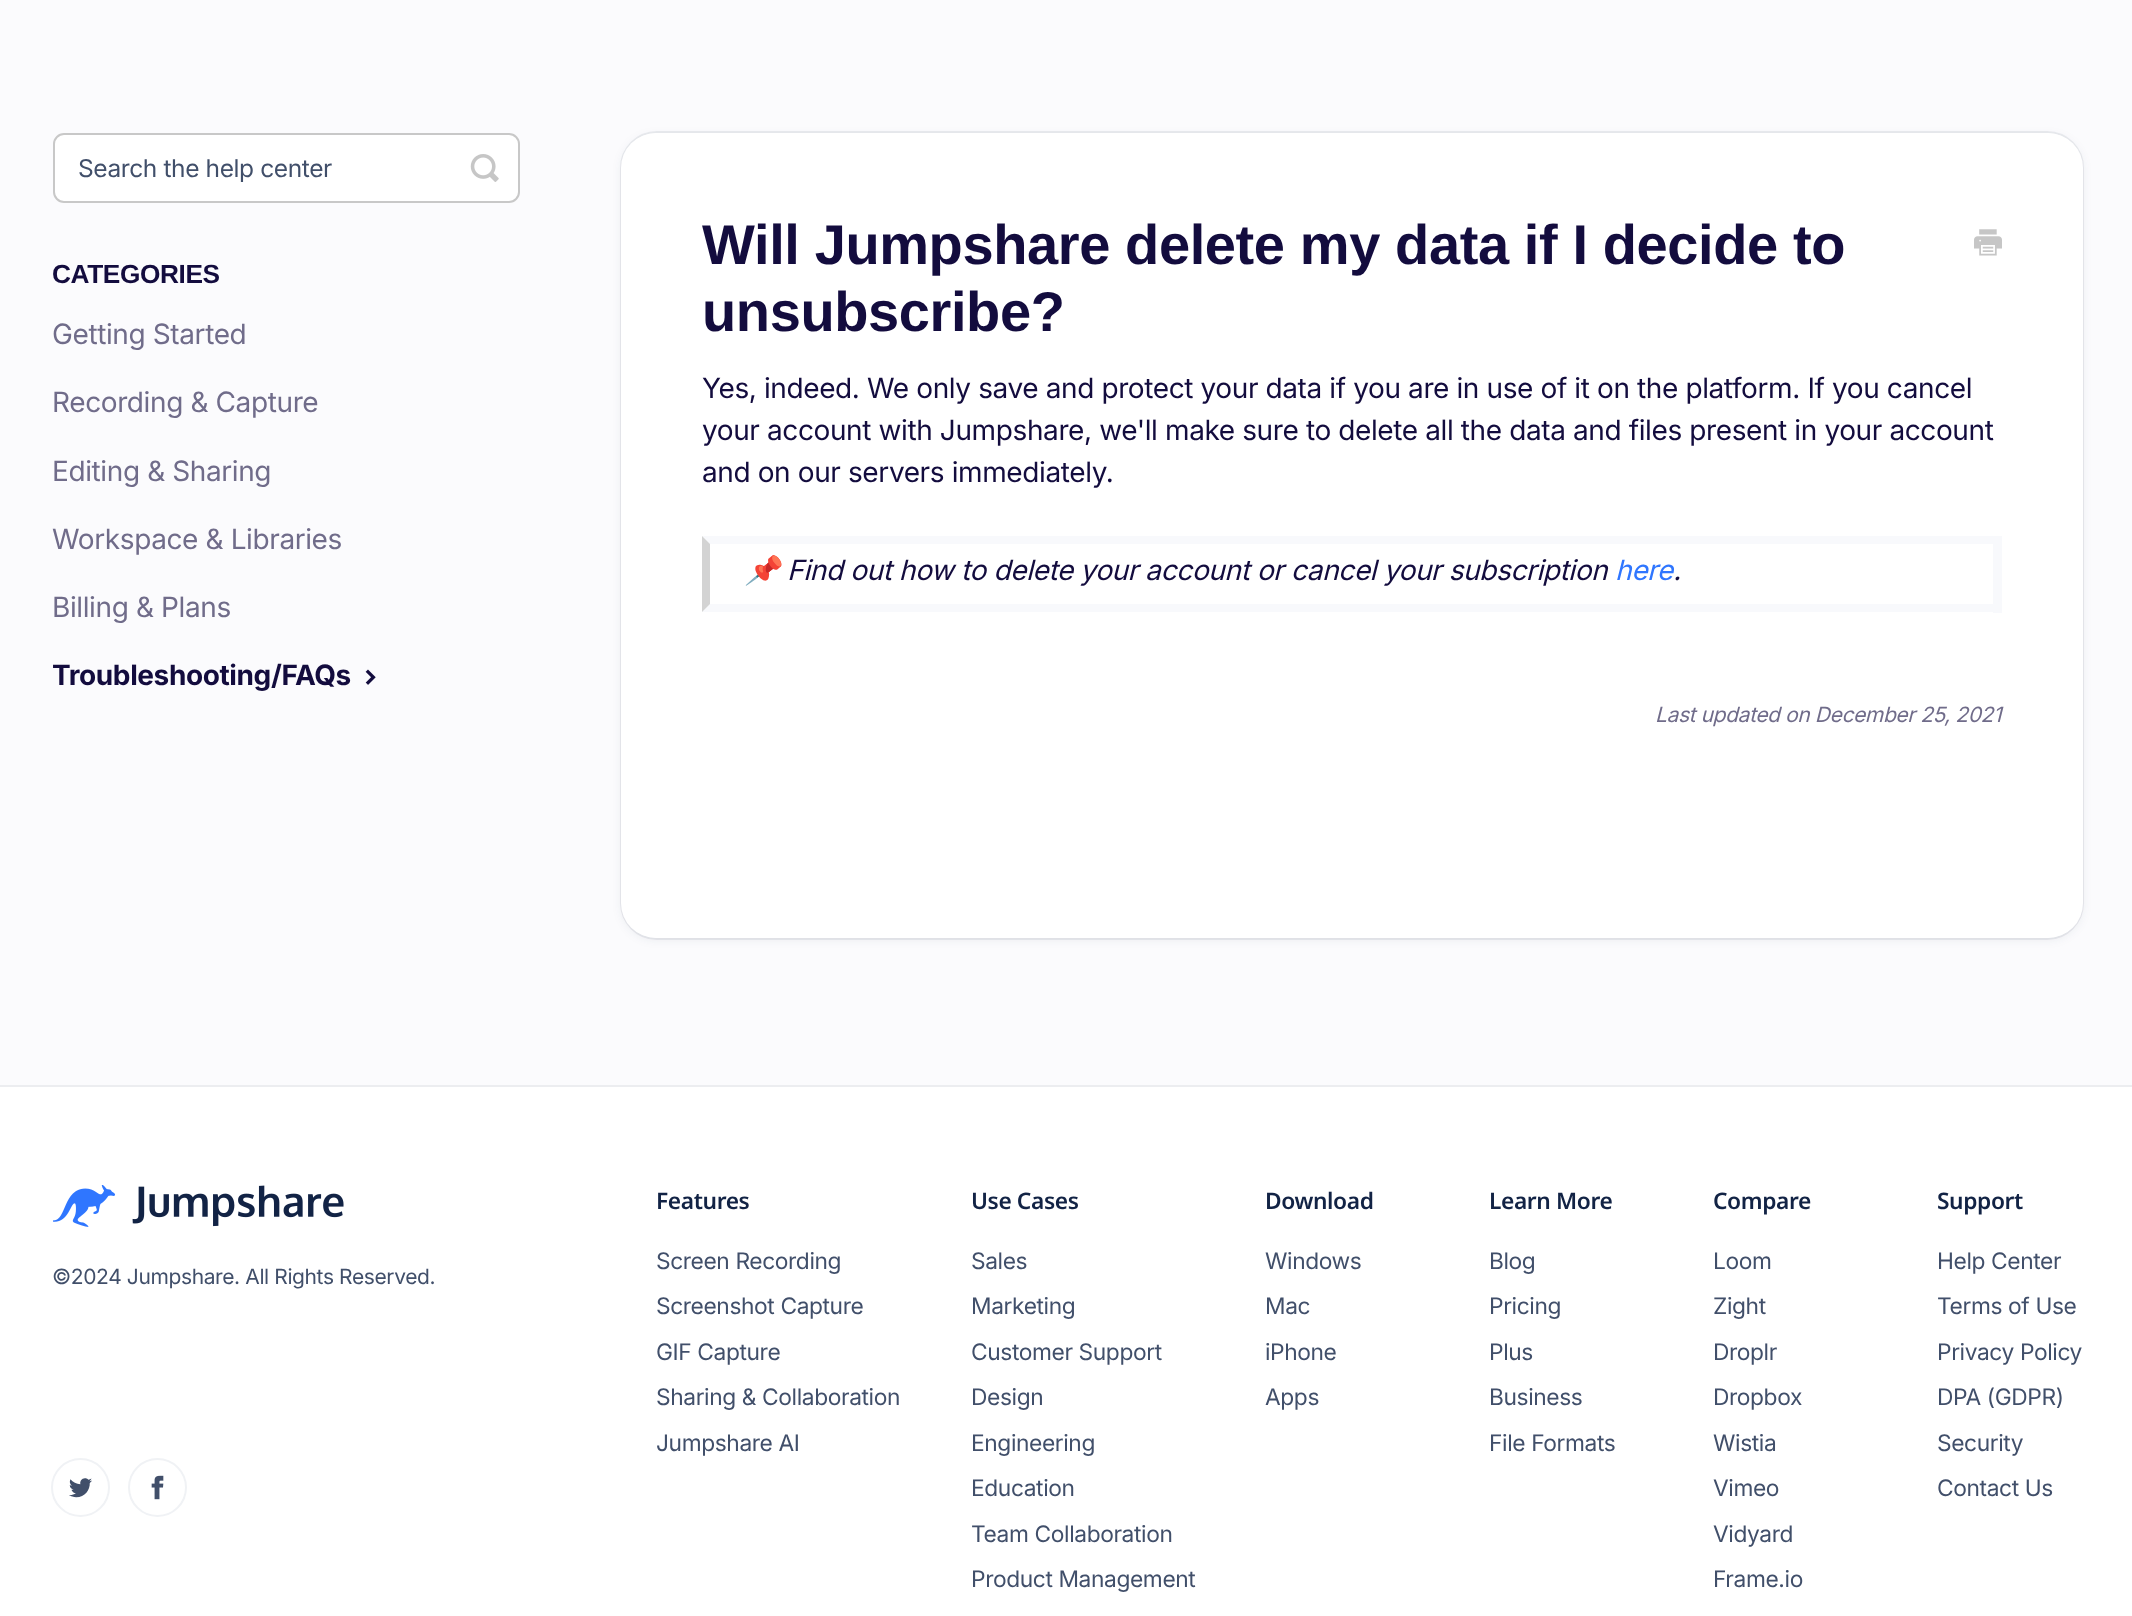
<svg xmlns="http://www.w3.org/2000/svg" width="2132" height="1616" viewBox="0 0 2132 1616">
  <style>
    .t1 { font: 24.5px Inter; letter-spacing: -0.39px; fill: #414f6a; }
    .t2 { font: bold 26.25px Liberation Sans; letter-spacing: -0.39px; fill: #130c3e; }
    .t3 { font: 28px Inter; letter-spacing: -0.39px; fill: #706c8a; }
    .t4 { font: bold 28px Inter; letter-spacing: -0.39px; fill: #130c3e; }
    .t5 { font: bold 56px Liberation Sans; letter-spacing: -0.39px; fill: #130c3e; }
    .t6 { font: 28px Inter; letter-spacing: -0.39px; fill: #130c3e; }
    .t7 { font: italic 28px Noto Color Emoji; letter-spacing: -0.39px; fill: #130c3e; }
    .t8 { font: italic 28px Inter; letter-spacing: -0.39px; fill: #130c3e; }
    .t9 { font: italic 28px Inter; letter-spacing: -0.39px; fill: #2f76ff; }
    .t10 { font: italic 21px Inter; letter-spacing: -0.39px; fill: #706c8a; }
    .t11 { font: 21px Inter; letter-spacing: -0.39px; fill: #414f6a; }
    .t12 { font: 600 22.75px Noto Sans; letter-spacing: -0.39px; fill: #122345; }
    .t13 { font: 22.75px Inter; letter-spacing: -0.39px; fill: #414f6a; }
  </style>
  <rect width="100%" height="100%" fill="#fbfbfd"/>
  <rect x="54" y="134" width="465" height="68" rx="10" fill="#fff" stroke="#c8c8c8" stroke-width="2"/>
  <text x="78" y="177" class="t1">Search the help center</text>
  <image x="470" y="154" width="29" height="28" href="images/1.png"/>
  <text x="52" y="283" class="t2">CATEGORIES</text>
  <text x="52" y="344" class="t3">Getting Started</text>
  <text x="52" y="412" class="t3">Recording &amp; Capture</text>
  <text x="52" y="481" class="t3">Editing &amp; Sharing</text>
  <text x="52" y="549" class="t3">Workspace &amp; Libraries</text>
  <text x="52" y="617" class="t3">Billing &amp; Plans</text>
  <text x="52" y="685" class="t4">Troubleshooting/FAQs</text>
  <image x="365" y="669" width="11" height="16" href="images/2.png"/>
  <rect x="621" y="132" width="1462" height="807" rx="36" fill="none" stroke="#eaebef" stroke-width="2"/>
  <rect x="623" y="137" width="1458" height="801" rx="33" fill="#1223451a" filter="blur(5.5px)"/>
  <rect x="621" y="133" width="1462" height="805" rx="35" fill="#fff"/>
  <text x="702" y="264" class="t5">Will Jumpshare delete my data if I decide to</text>
  <text x="702" y="331" class="t5">unsubscribe?</text>
  <image x="1974" y="229" width="28" height="27" href="images/3.png"/>
  <text x="702" y="398" class="t6">Yes, indeed. We only save and protect your data if you are in use of it on the platform. If you cancel</text>
  <text x="702" y="440" class="t6">your account with Jumpshare, we'll make sure to delete all the data and files present in your account</text>
  <text x="702" y="482" class="t6">and on our servers immediately.</text>
  <path d="M702 536H2002L1993 544H710Z" fill="#f8f9fc"/>
  <rect x="1993" y="536" width="9" height="77" fill="#f8f9fc"/>
  <path d="M2002 612H702L710 604H1993Z" fill="#f8f9fc"/>
  <path d="M702 612V536L710 544V604Z" fill="#d3d3d3"/>
  <text x="745" y="580" class="t7">📌</text>
  <text x="787" y="580" class="t8">Find out how to delete your account or cancel your subscription</text>
  <text x="1615" y="580" class="t9">here</text>
  <text x="1673" y="580" class="t8">.</text>
  <text x="1655" y="722" class="t10">Last updated on December 25, 2021</text>
  <rect x="0" y="1087" width="2132" height="529" fill="#fff"/>
  <rect x="0" y="1085" width="2132" height="2" fill="#ecedf0"/>
  <image x="53" y="1185" width="291" height="42" href="images/4.png"/>
  <text x="52" y="1284" class="t11">©2024 Jumpshare. All Rights Reserved.</text>
  <circle cx="80.5" cy="1487.5" r="28.5" fill="none" stroke="#f0f2f5" stroke-width="2"/>
  <image x="69" y="1478" width="23" height="20" href="images/5.png"/>
  <circle cx="157.5" cy="1487.5" r="28.5" fill="none" stroke="#f0f2f5" stroke-width="2"/>
  <image x="151" y="1475" width="13" height="25" href="images/6.png"/>
  <text x="656" y="1209" class="t12">Features</text>
  <text x="656" y="1269" class="t13">Screen Recording</text>
  <text x="656" y="1314" class="t13">Screenshot Capture</text>
  <text x="656" y="1360" class="t13">GIF Capture</text>
  <text x="656" y="1405" class="t13">Sharing &amp; Collaboration</text>
  <text x="656" y="1451" class="t13">Jumpshare AI</text>
  <text x="971" y="1209" class="t12">Use Cases</text>
  <text x="971" y="1269" class="t13">Sales</text>
  <text x="971" y="1314" class="t13">Marketing</text>
  <text x="971" y="1360" class="t13">Customer Support</text>
  <text x="971" y="1405" class="t13">Design</text>
  <text x="971" y="1451" class="t13">Engineering</text>
  <text x="971" y="1496" class="t13">Education</text>
  <text x="971" y="1542" class="t13">Team Collaboration</text>
  <text x="971" y="1587" class="t13">Product Management</text>
  <text x="1265" y="1209" class="t12">Download</text>
  <text x="1265" y="1269" class="t13">Windows</text>
  <text x="1265" y="1314" class="t13">Mac</text>
  <text x="1265" y="1360" class="t13">iPhone</text>
  <text x="1265" y="1405" class="t13">Apps</text>
  <text x="1489" y="1209" class="t12">Learn More</text>
  <text x="1489" y="1269" class="t13">Blog</text>
  <text x="1489" y="1314" class="t13">Pricing</text>
  <text x="1489" y="1360" class="t13">Plus</text>
  <text x="1489" y="1405" class="t13">Business</text>
  <text x="1489" y="1451" class="t13">File Formats</text>
  <text x="1713" y="1209" class="t12">Compare</text>
  <text x="1713" y="1269" class="t13">Loom</text>
  <text x="1713" y="1314" class="t13">Zight</text>
  <text x="1713" y="1360" class="t13">Droplr</text>
  <text x="1713" y="1405" class="t13">Dropbox</text>
  <text x="1713" y="1451" class="t13">Wistia</text>
  <text x="1713" y="1496" class="t13">Vimeo</text>
  <text x="1713" y="1542" class="t13">Vidyard</text>
  <text x="1713" y="1587" class="t13">Frame.io</text>
  <text x="1937" y="1209" class="t12">Support</text>
  <text x="1937" y="1269" class="t13">Help Center</text>
  <text x="1937" y="1314" class="t13">Terms of Use</text>
  <text x="1937" y="1360" class="t13">Privacy Policy</text>
  <text x="1937" y="1405" class="t13">DPA (GDPR)</text>
  <text x="1937" y="1451" class="t13">Security</text>
  <text x="1937" y="1496" class="t13">Contact Us</text>
</svg>
